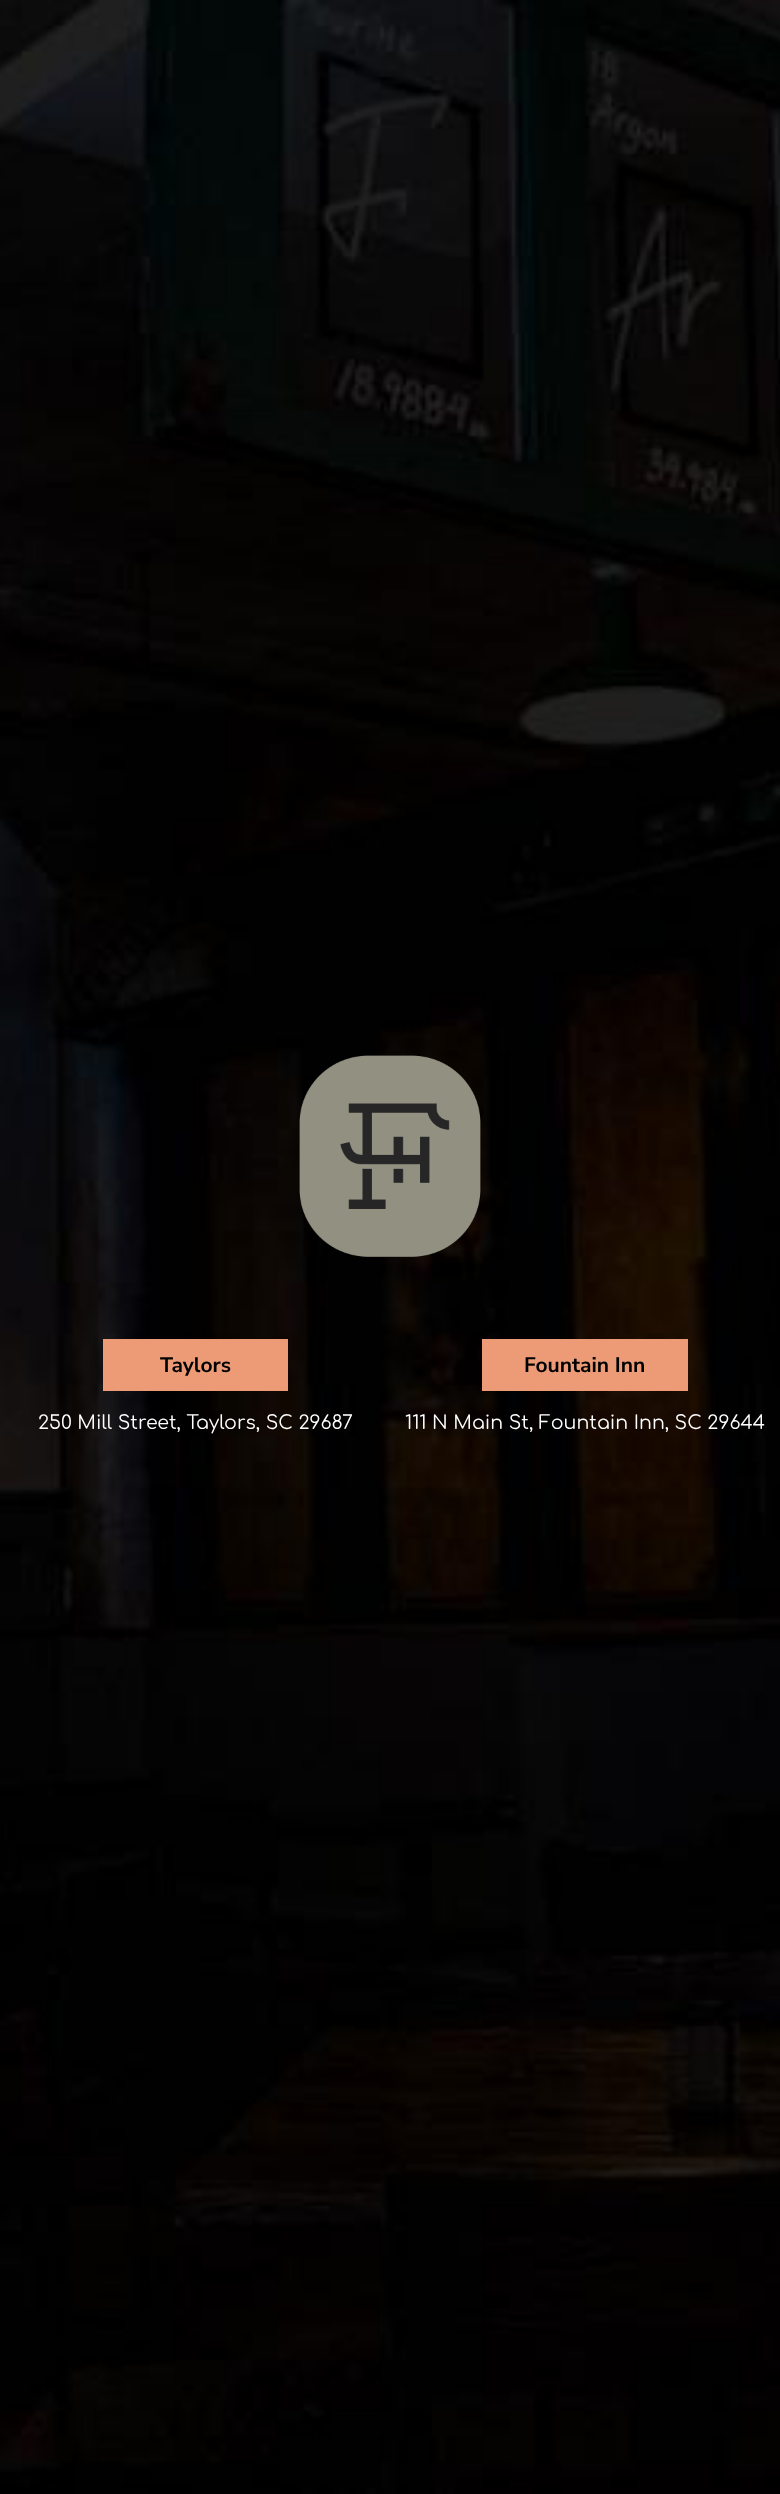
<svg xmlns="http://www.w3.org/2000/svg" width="780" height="2494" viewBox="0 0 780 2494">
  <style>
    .t1 { font: 200 21px Nunito Sans; fill: #000; }
    .t2 { font: 19px Comfortaa; fill: #fff; }
  </style>
  <rect width="100%" height="100%" fill="#fff"/>
  <image x="0" y="0" width="780" height="2494" href="images/1.png"/>
  <image x="299" y="1055" width="182" height="202" href="images/2.png"/>
  <rect x="103" y="1339" width="185" height="52" fill="#ed9b76"/>
  <text x="160" y="1372" class="t1">Taylors</text>
  <text x="38" y="1429" class="t2">250 Mill Street, Taylors, SC 29687</text>
  <rect x="482" y="1339" width="206" height="52" fill="#ed9b76"/>
  <text x="524" y="1372" class="t1">Fountain Inn</text>
  <text x="405" y="1429" class="t2">111 N Main St, Fountain Inn, SC 29644</text>
</svg>
